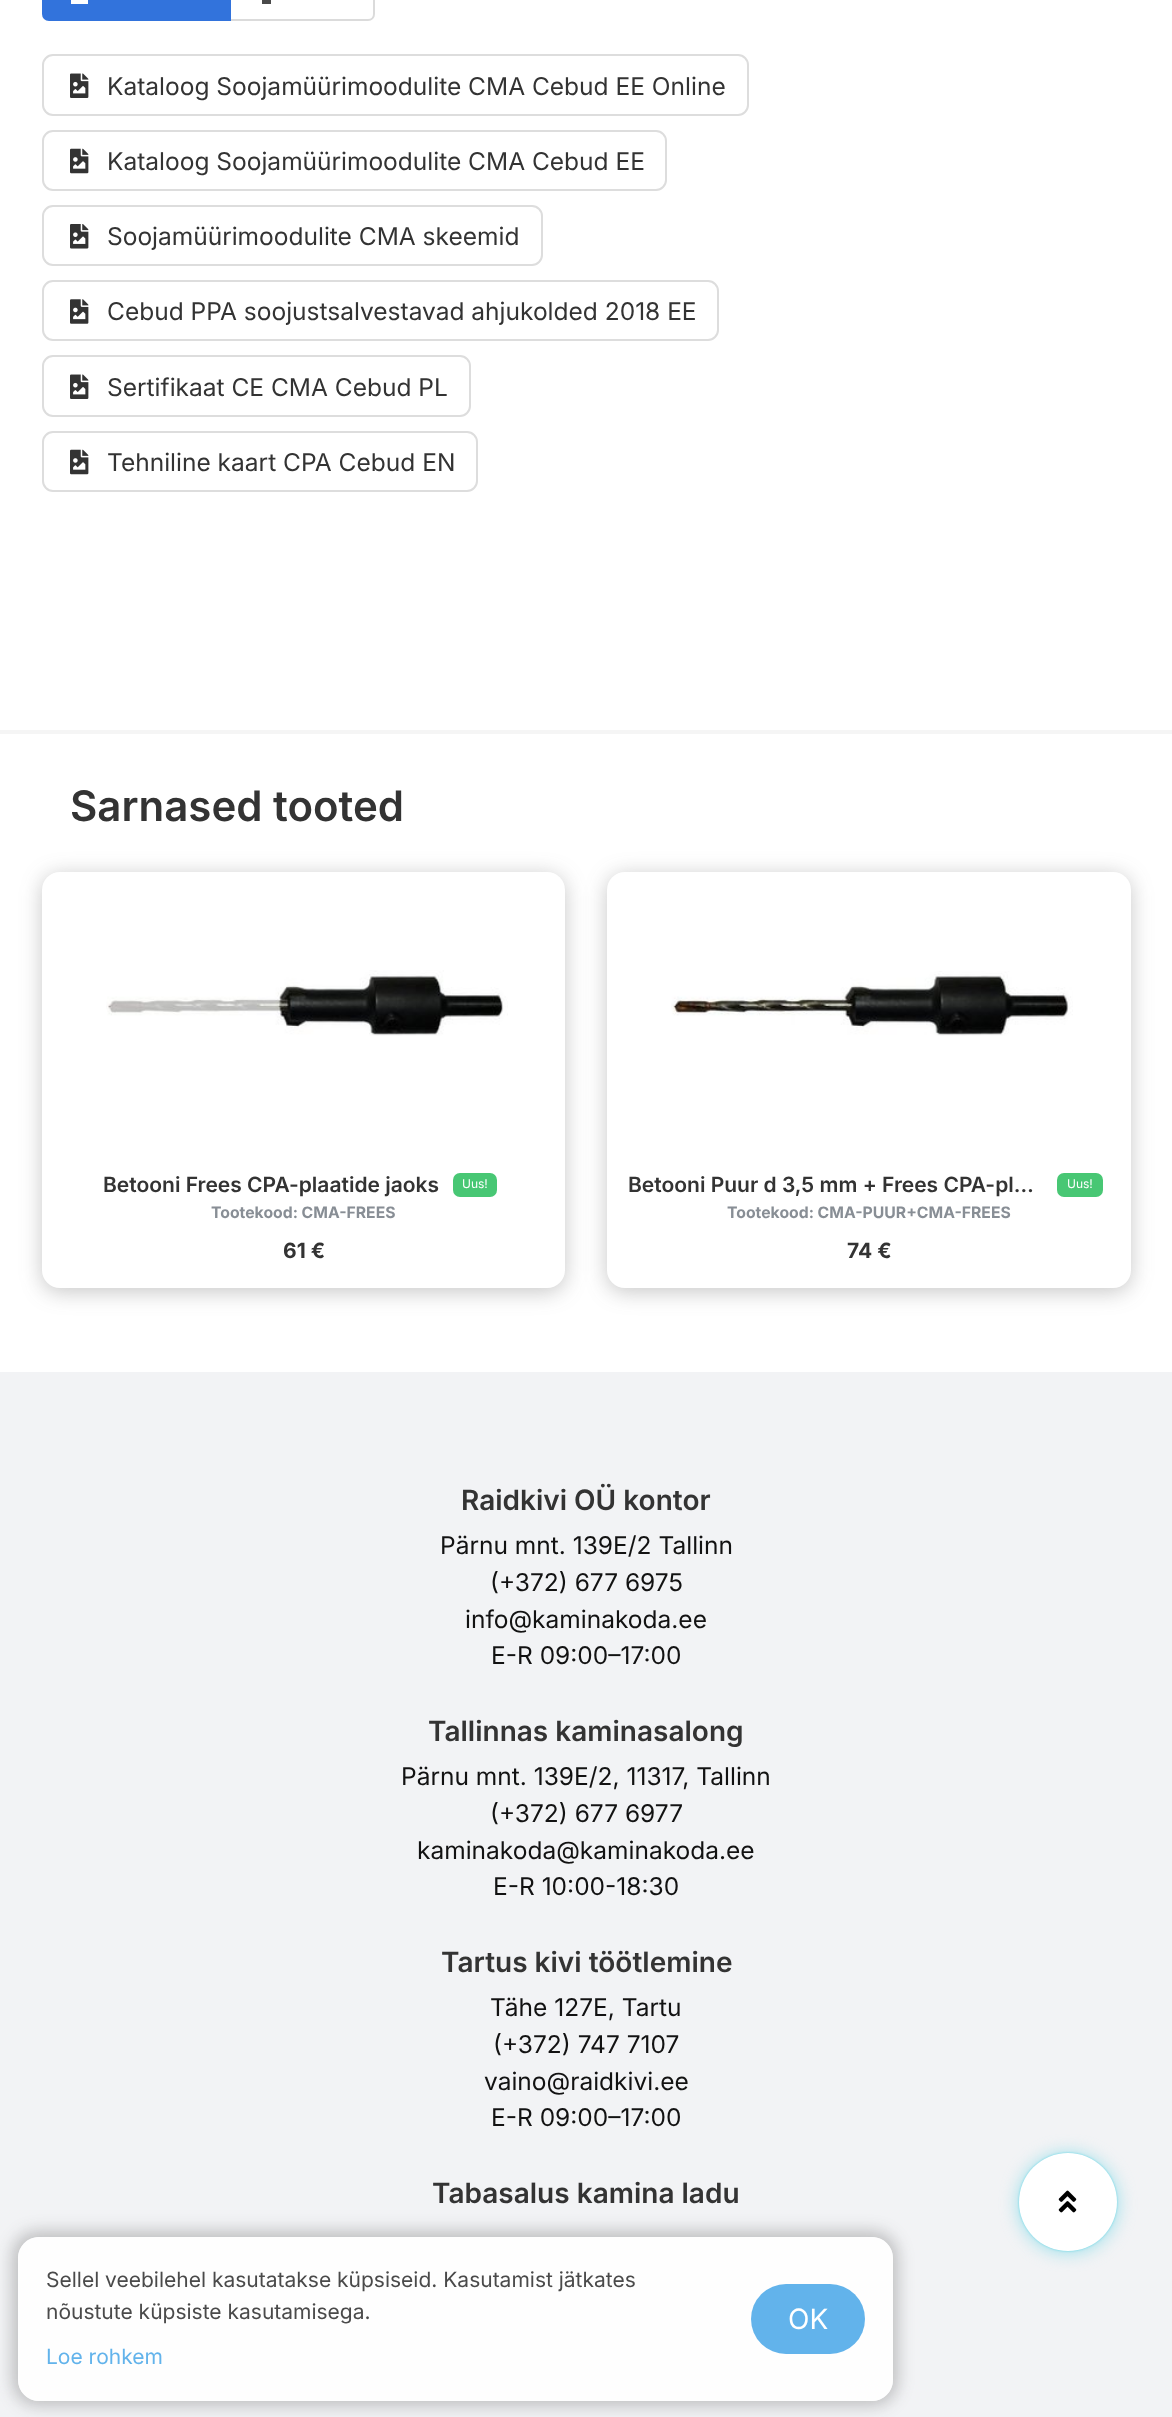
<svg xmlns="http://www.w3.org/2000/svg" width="1172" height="2417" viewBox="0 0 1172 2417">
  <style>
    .t1 { font: 24.5px Inter; fill: #333; }
    .t2 { font: 600 42px Inter; fill: #333; }
    .t3 { font: 600 21px Inter; fill: #333; }
    .t4 { font: 12px Inter; fill: #fff; }
    .t5 { font: bold 15.75px Inter; fill: #888e95; }
    .t6 { font: bold 21px Inter; fill: #333; }
    .t7 { font: 600 28px Inter; fill: #333; }
    .t8 { font: 24.5px Inter; fill: #121212; }
    .t9 { font: 21px Inter; fill: #4a4a4a; }
    .t10 { font: 21px Inter; fill: #62b3eb; }
    .t11 { font: 28px Inter; fill: #fff; }
  </style>
  <defs>
    <clipPath id="clip1"><path d="M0 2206H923V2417H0ZM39 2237H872C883.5 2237 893 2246.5 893 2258V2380C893 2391.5 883.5 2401 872 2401H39C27.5 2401 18 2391.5 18 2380V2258C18 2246.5 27.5 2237 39 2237Z" clip-rule="evenodd"/></clipPath>
  </defs>
  <rect width="100%" height="100%" fill="#fff"/>
  <path d="M230-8H368C371.5-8 374-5.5 374-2V14C374 17.5 371.5 20 368 20H230Z" fill="none" stroke="#dbdbdb" stroke-width="2"/>
  <path d="M49-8H230V20H49C45.5 20 43 17.5 43 14V-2C43-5.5 45.5-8 49-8Z" fill="#3273dc" stroke="#3273dc" stroke-width="2"/>
  <rect x="71" y="0" width="17" height="4" fill="#fff"/>
  <rect x="262" y="0" width="9" height="4" fill="#4a4a4a"/>
  <rect x="43" y="55" width="705" height="60" rx="10" fill="none" stroke="#ddd" stroke-width="2"/>
  <image x="70" y="73" width="19" height="25" href="images/1.png"/>
  <text x="107" y="95" class="t1">Kataloog Soojamüürimoodulite CMA Cebud EE Online</text>
  <rect x="43" y="131" width="623" height="59" rx="10" fill="none" stroke="#ddd" stroke-width="2"/>
  <image x="70" y="148" width="19" height="26" href="images/2.png"/>
  <text x="107" y="170" class="t1">Kataloog Soojamüürimoodulite CMA Cebud EE</text>
  <rect x="43" y="206" width="499" height="59" rx="10" fill="none" stroke="#ddd" stroke-width="2"/>
  <image x="70" y="224" width="19" height="25" href="images/3.png"/>
  <text x="107" y="245" class="t1">Soojamüürimoodulite CMA skeemid</text>
  <rect x="43" y="281" width="675" height="59" rx="10" fill="none" stroke="#ddd" stroke-width="2"/>
  <image x="70" y="299" width="19" height="25" href="images/4.png"/>
  <text x="107" y="320" class="t1">Cebud PPA soojustsalvestavad ahjukolded 2018 EE</text>
  <rect x="43" y="356" width="427" height="60" rx="10" fill="none" stroke="#ddd" stroke-width="2"/>
  <image x="70" y="374" width="19" height="25" href="images/1.png"/>
  <text x="107" y="396" class="t1">Sertifikaat CE CMA Cebud PL</text>
  <rect x="43" y="432" width="434" height="59" rx="10" fill="none" stroke="#ddd" stroke-width="2"/>
  <image x="70" y="449" width="19" height="26" href="images/2.png"/>
  <text x="107" y="471" class="t1">Tehniline kaart CPA Cebud EN</text>
  <rect x="0" y="730" width="1172" height="4" fill="#f5f5f5"/>
  <text x="70" y="821" class="t2">Sarnased tooted</text>
  <rect x="42" y="875" width="523" height="417" rx="18" fill="#4444444d" filter="blur(10.5px)"/>
  <rect x="42" y="872" width="523" height="416" rx="18" fill="#fff"/>
  <image x="106" y="970" width="402" height="66" href="images/5.png"/>
  <text x="103" y="1192" class="t3">Betooni Frees CPA-plaatide jaoks</text>
  <rect x="453" y="1173" width="44" height="24" rx="7" fill="#48c774"/>
  <text x="462" y="1188" class="t4">Uus!</text>
  <text x="211" y="1218" class="t5">Tootekood: CMA-FREES</text>
  <text x="283" y="1258" class="t6">61 €</text>
  <rect x="607" y="875" width="524" height="417" rx="18" fill="#4444444d" filter="blur(10.5px)"/>
  <rect x="607" y="872" width="524" height="416" rx="18" fill="#fff"/>
  <image x="671" y="971" width="402" height="65" href="images/6.png"/>
  <text x="628" y="1192" class="t3">Betooni Puur d 3,5 mm + Frees CPA-pl…</text>
  <rect x="1057" y="1173" width="46" height="24" rx="7" fill="#48c774"/>
  <text x="1067" y="1188" class="t4">Uus!</text>
  <text x="727" y="1218" class="t5">Tootekood: CMA-PUUR+CMA-FREES</text>
  <text x="847" y="1258" class="t6">74 €</text>
  <rect x="0" y="1372" width="1172" height="1045" fill="#f2f3f5"/>
  <text x="461" y="1510" class="t7">Raidkivi OÜ kontor</text>
  <text x="440" y="1554" class="t8">Pärnu mnt. 139E/2 Tallinn</text>
  <text x="490" y="1591" class="t8">(+372) 677 6975</text>
  <text x="465" y="1628" class="t8">info@kaminakoda.ee</text>
  <text x="491" y="1664" class="t8">E-R 09:00–17:00</text>
  <text x="428" y="1741" class="t7">Tallinnas kaminasalong</text>
  <text x="401" y="1785" class="t8">Pärnu mnt. 139E/2, 11317, Tallinn</text>
  <text x="490" y="1822" class="t8">(+372) 677 6977</text>
  <text x="417" y="1859" class="t8">kaminakoda@kaminakoda.ee</text>
  <text x="493" y="1895" class="t8">E-R 10:00-18:30</text>
  <text x="441" y="1972" class="t7">Tartus kivi töötlemine</text>
  <text x="490" y="2016" class="t8">Tähe 127E, Tartu</text>
  <text x="493" y="2053" class="t8">(+372) 747 7107</text>
  <text x="484" y="2090" class="t8">vaino@raidkivi.ee</text>
  <text x="491" y="2126" class="t8">E-R 09:00–17:00</text>
  <text x="432" y="2203" class="t7">Tabasalus kamina ladu</text>
  <rect x="1019" y="2154" width="98" height="98" rx="49" fill="#6bd6e6b3" filter="blur(9px)"/>
  <rect x="1019" y="2153" width="98" height="98" rx="49" fill="#6bd6e6" filter="blur(1px)"/>
  <circle cx="1068" cy="2202" r="49" fill="#fff"/>
  <image x="1058" y="2190" width="19" height="23" href="images/7.png"/>
  <g clip-path="url(#clip1)">
    <rect x="12" y="2231" width="886" height="175" rx="26" fill="#29292940" filter="blur(8px)"/>
  </g>
  <rect x="18" y="2237" width="875" height="164" rx="21" fill="#ffffffe6"/>
  <text x="46" y="2287" class="t9">Sellel veebilehel kasutatakse küpsiseid. Kasutamist jätkates</text>
  <text x="46" y="2319" class="t9">nõustute küpsiste kasutamisega.</text>
  <text x="46" y="2364" class="t10">Loe rohkem</text>
  <rect x="751" y="2284" width="114" height="70" rx="35" fill="#62b3eb"/>
  <text x="788" y="2329" class="t11">OK</text>
</svg>
